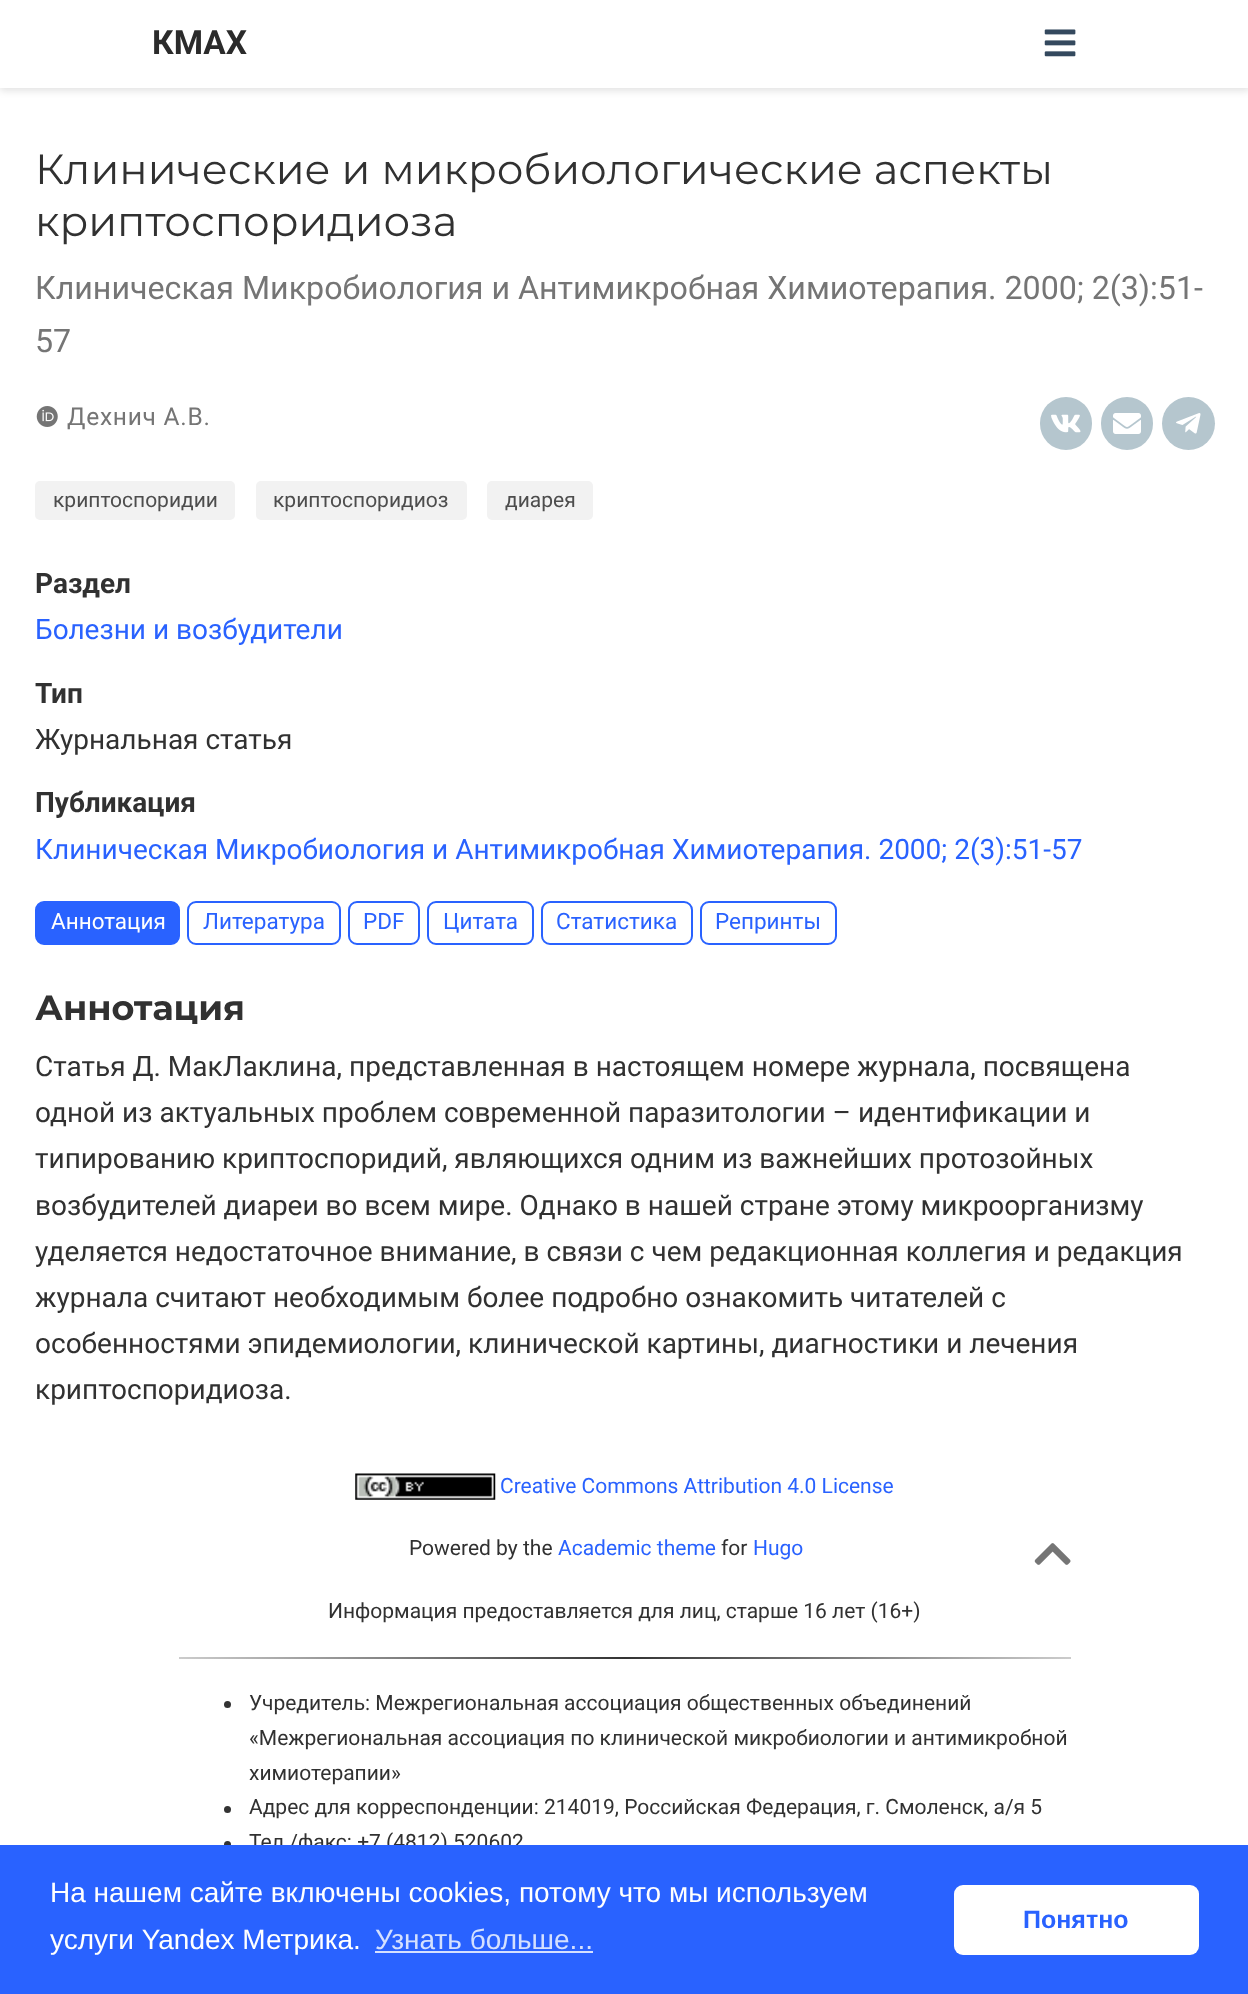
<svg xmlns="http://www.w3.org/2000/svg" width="1248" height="1994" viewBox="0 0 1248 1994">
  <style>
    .t1 { font: bold 33.5px Roboto; fill: #2b2b2b; }
    .t2 { font: 42px Montserrat; fill: #313131; }
    .t3 { font: 32.2px Roboto; fill: #757575; }
    .t4 { font: 24.5px Roboto; letter-spacing: 0.75px; fill: #757575; }
    .t5 { font: 21px Roboto; fill: #4d4d4d; }
    .t6 { font: bold 28px Roboto; fill: #313131; }
    .t7 { font: 28px Roboto; fill: #2962ff; }
    .t8 { font: 28px Roboto; fill: #313131; }
    .t9 { font: 22.5px Roboto; fill: #fff; }
    .t10 { font: 22.5px Roboto; fill: #2962ff; }
    .t11 { font: bold 35px Montserrat; fill: #313131; }
    .t12 { font: 21px Roboto; fill: #2962ff; }
    .t13 { font: 21px Roboto; fill: #313131; }
    .t14 { font: 28px Liberation Sans; fill: #fff; }
    .t15 { font: 28px Liberation Sans; fill: #d4e0ff; }
    .t16 { font: bold 25px Liberation Sans; fill: #2962ff; }
  </style>
  <defs>
    <linearGradient id="g1" gradientUnits="userSpaceOnUse" x1="179" y1="1658" x2="1071" y2="1658"><stop offset="0" stop-color="#ccc"/><stop offset="0.5" stop-color="#333"/><stop offset="1" stop-color="#ccc"/></linearGradient>
  </defs>
  <rect width="100%" height="100%" fill="#fff"/>
  <rect x="0" y="4" width="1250" height="87" fill="#0000001c" filter="blur(3.5px)"/>
  <rect x="0" y="0" width="1248" height="88" fill="#fff"/>
  <text x="152" y="54" class="t1">КМАХ</text>
  <image x="1044" y="29" width="32" height="28" href="images/1.png"/>
  <text x="35" y="184" class="t2">Клинические и микробиологические аспекты</text>
  <text x="35" y="236" class="t2">криптоспоридиоза</text>
  <text x="35" y="299" class="t3">Клиническая Микробиология и Антимикробная Химиотерапия. 2000; 2(3):51-</text>
  <text x="35" y="352" class="t3">57</text>
  <image x="36" y="406" width="22" height="21" href="images/2.png"/>
  <text x="67" y="425" class="t4">Дехнич А.В.</text>
  <rect x="1040" y="397" width="52" height="53" rx="26" fill="#b5c6ce"/>
  <image x="1051" y="414" width="30" height="19" href="images/3.png"/>
  <rect x="1101" y="397" width="52" height="53" rx="26" fill="#b5c6ce"/>
  <image x="1113" y="413" width="28" height="21" href="images/4.png"/>
  <circle cx="1188.5" cy="423.5" r="26.5" fill="#b5c6ce"/>
  <image x="1176" y="413" width="25" height="21" href="images/5.png"/>
  <rect x="35" y="481" width="200" height="39" rx="5" fill="#f2f2f2"/>
  <text x="53" y="507" class="t5">криптоспоридии</text>
  <rect x="256" y="481" width="211" height="39" rx="5" fill="#f2f2f2"/>
  <text x="273" y="507" class="t5">криптоспоридиоз</text>
  <rect x="487" y="481" width="106" height="39" rx="5" fill="#f2f2f2"/>
  <text x="505" y="507" class="t5">диарея</text>
  <text x="35" y="593" class="t6">Раздел</text>
  <text x="35" y="639" class="t7">Болезни и возбудители</text>
  <text x="35" y="703" class="t6">Тип</text>
  <text x="35" y="749" class="t8">Журнальная статья</text>
  <text x="35" y="812" class="t6">Публикация</text>
  <text x="35" y="859" class="t7">Клиническая Микробиология и Антимикробная Химиотерапия. 2000; 2(3):51-57</text>
  <rect x="36" y="902" width="143" height="42" rx="8" fill="#2962ff" stroke="#2962ff" stroke-width="2"/>
  <text x="51" y="929" class="t9">Аннотация</text>
  <rect x="188" y="902" width="152" height="42" rx="8" fill="none" stroke="#2962ff" stroke-width="2"/>
  <text x="203" y="929" class="t10">Литература</text>
  <rect x="349" y="902" width="70" height="42" rx="8" fill="none" stroke="#2962ff" stroke-width="2"/>
  <text x="363" y="929" class="t10">PDF</text>
  <rect x="428" y="902" width="105" height="42" rx="8" fill="none" stroke="#2962ff" stroke-width="2"/>
  <text x="443" y="929" class="t10">Цитата</text>
  <rect x="542" y="902" width="150" height="42" rx="8" fill="none" stroke="#2962ff" stroke-width="2"/>
  <text x="556" y="929" class="t10">Статистика</text>
  <rect x="701" y="902" width="135" height="42" rx="8" fill="none" stroke="#2962ff" stroke-width="2"/>
  <text x="715" y="929" class="t10">Репринты</text>
  <text x="35" y="1020" class="t11">Аннотация</text>
  <text x="35" y="1076" class="t8">Статья Д. МакЛаклина, представленная в настоящем номере журнала, посвящена</text>
  <text x="35" y="1122" class="t8">одной из актуальных проблем современной паразитологии – идентификации и</text>
  <text x="35" y="1168" class="t8">типированию криптоспоридий, являющихся одним из важнейших протозойных</text>
  <text x="35" y="1215" class="t8">возбудителей диареи во всем мире. Однако в нашей стране этому микроорганизму</text>
  <text x="35" y="1261" class="t8">уделяется недостаточное внимание, в связи с чем редакционная коллегия и редакция</text>
  <text x="35" y="1307" class="t8">журнала считают необходимым более подробно ознакомить читателей с</text>
  <text x="35" y="1353" class="t8">особенностями эпидемиологии, клинической картины, диагностики и лечения</text>
  <text x="35" y="1399" class="t8">криптоспоридиоза.</text>
  <image x="355" y="1473" width="141" height="27" href="images/6.png"/>
  <text x="500" y="1493" class="t12">Creative Commons Attribution 4.0 License</text>
  <text x="409" y="1555" class="t13">Powered by the</text>
  <text x="558" y="1555" class="t12">Academic theme</text>
  <text x="721" y="1555" class="t13">for</text>
  <text x="753" y="1555" class="t12">Hugo</text>
  <image x="1034" y="1543" width="37" height="22" href="images/7.png"/>
  <text x="328" y="1618" class="t13">Информация предоставляется для лиц, старше 16 лет (16+)</text>
  <rect x="179" y="1657" width="892" height="2" fill="url(#g1)"/>
  <circle cx="227.5" cy="1704.5" r="3.5" fill="#333"/>
  <text x="249" y="1710" class="t13">Учредитель: Межрегиональная ассоциация общественных объединений</text>
  <text x="249" y="1745" class="t13">«Межрегиональная ассоциация по клинической микробиологии и антимикробной</text>
  <text x="249" y="1780" class="t13">химиотерапии»</text>
  <circle cx="227.5" cy="1809.5" r="3.5" fill="#333"/>
  <text x="249" y="1814" class="t13">Адрес для корреспонденции: 214019, Российская Федерация, г. Смоленск, а/я 5</text>
  <circle cx="227.5" cy="1844.5" r="3.5" fill="#333"/>
  <text x="249" y="1849" class="t13">Тел./факс: +7 (4812) 520602</text>
  <rect x="0" y="1845" width="1248" height="149" fill="#2962ff"/>
  <text x="50" y="1902" class="t14">На нашем сайте включены cookies, потому что мы используем</text>
  <text x="50" y="1949" class="t14">услуги Yandex Метрика.</text>
  <text x="375" y="1949" class="t15">Узнать больше...</text>
  <rect x="375" y="1951" width="218" height="2" fill="#d4e0ff"/>
  <rect x="954" y="1885" width="245" height="70" rx="9" fill="#fff"/>
  <text x="1023" y="1928" class="t16">Понятно</text>
</svg>
